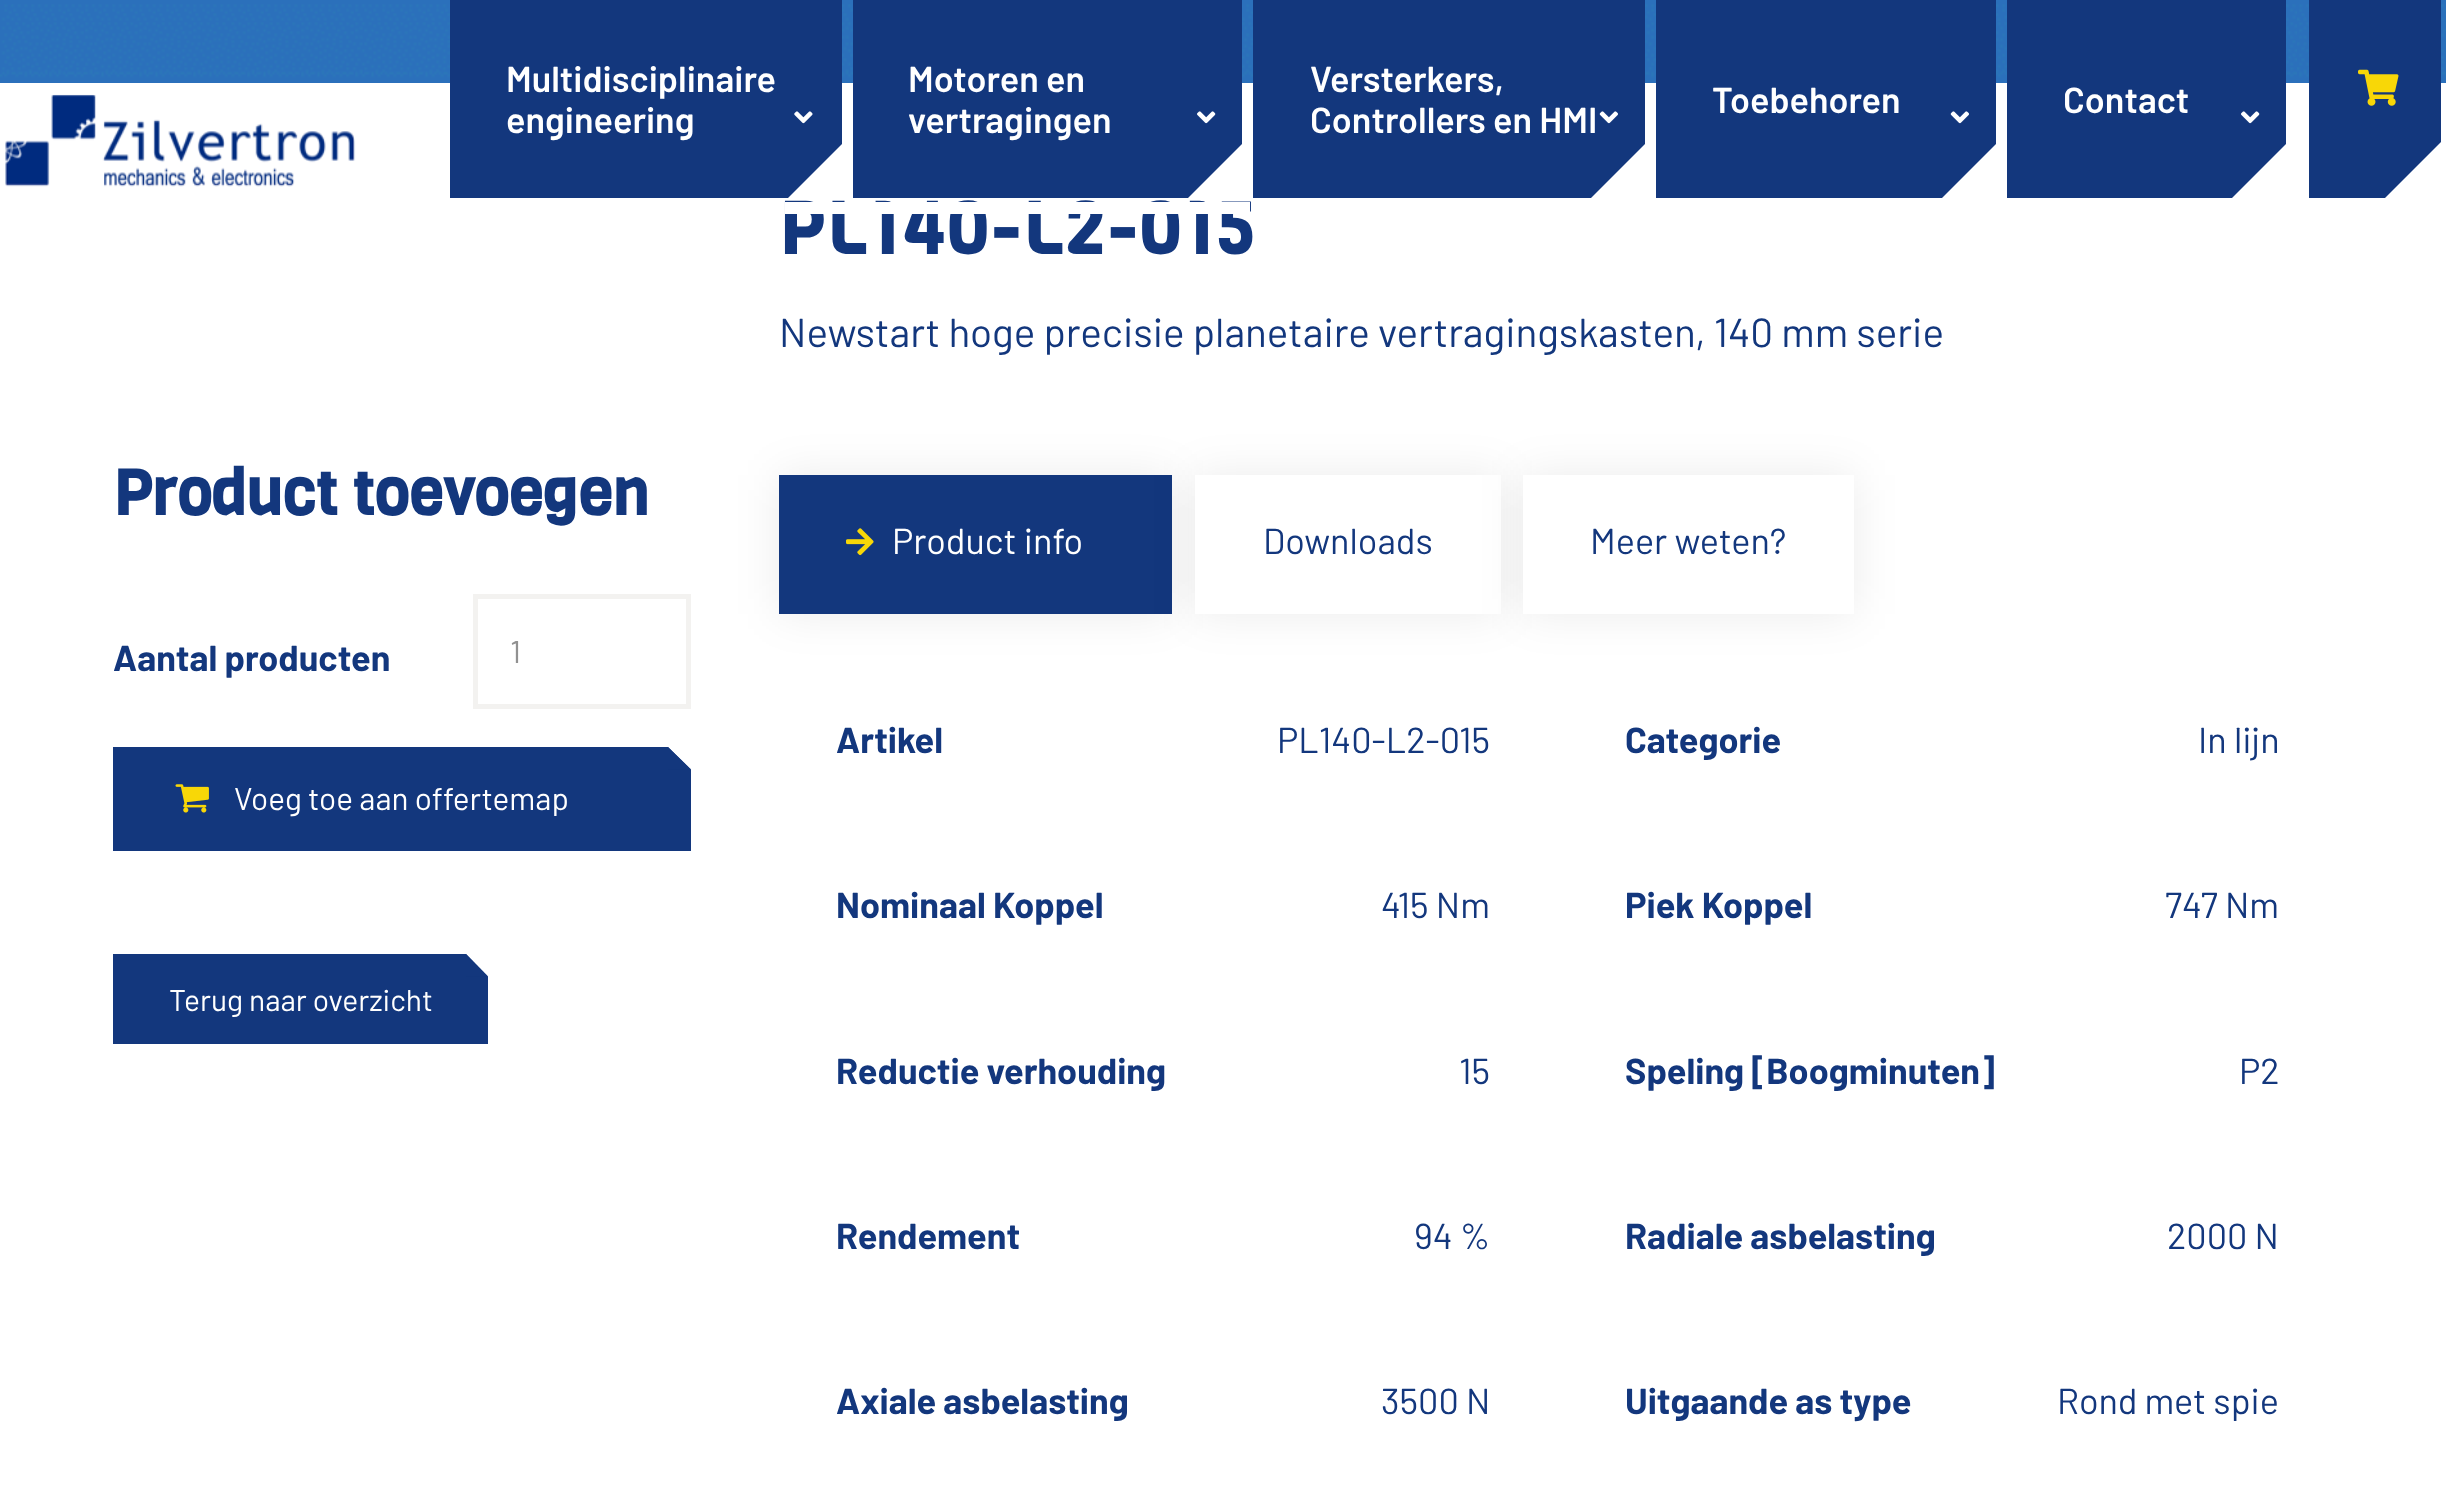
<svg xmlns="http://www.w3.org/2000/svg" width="2446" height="1487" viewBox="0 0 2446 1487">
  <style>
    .t1 { font: 600 36px Barlow; fill: #fff; }
    .t2 { font: bold 72px Viga; letter-spacing: 2.25px; fill: #13377d; }
    .t3 { font: bold 63px Viga; fill: #13377d; }
    .t4 { font: bold 36px Barlow; fill: #13377d; }
    .t5 { font: 31.5px Barlow; fill: #919191; }
    .t6 { font: 31.5px Barlow; fill: #fff; }
    .t7 { font: 30px Barlow; fill: #fff; }
    .t8 { font: 40.5px Barlow; fill: #13377d; }
    .t9 { font: 36px Barlow; fill: #fff; }
    .t10 { font: 36px Barlow; fill: #13377d; }
  </style>
  <rect width="100%" height="100%" fill="#fff"/>
  <image x="0" y="0" width="2446" height="83" href="images/1.png"/>
  <image x="5" y="94" width="351" height="93" href="images/2.png"/>
  <rect x="450" y="0" width="392" height="198" fill="#13377d"/>
  <text x="506" y="92" class="t1">Multidisciplinaire</text>
  <text x="506" y="133" class="t1">engineering</text>
  <image x="794" y="111" width="19" height="13" href="images/3.png"/>
  <path d="M844 142V198H788Z" fill="#fff"/>
  <rect x="853" y="0" width="389" height="198" fill="#13377d"/>
  <text x="908" y="92" class="t1">Motoren en</text>
  <text x="908" y="133" class="t1">vertragingen</text>
  <image x="1197" y="111" width="19" height="13" href="images/4.png"/>
  <path d="M1244 142V198H1188Z" fill="#fff"/>
  <rect x="1253" y="0" width="392" height="198" fill="#13377d"/>
  <text x="1310" y="92" class="t1">Versterkers,</text>
  <text x="1310" y="133" class="t1">Controllers en HMI</text>
  <image x="1599" y="111" width="19" height="13" href="images/5.png"/>
  <path d="M1647 142V198H1591Z" fill="#fff"/>
  <rect x="1656" y="0" width="340" height="198" fill="#13377d"/>
  <text x="1712" y="113" class="t1">Toebehoren</text>
  <image x="1950" y="111" width="19" height="13" href="images/5.png"/>
  <path d="M1998 142V198H1942Z" fill="#fff"/>
  <rect x="2007" y="0" width="279" height="198" fill="#13377d"/>
  <text x="2063" y="113" class="t1">Contact</text>
  <image x="2241" y="111" width="19" height="13" href="images/4.png"/>
  <path d="M2288 142V198H2232Z" fill="#fff"/>
  <rect x="2309" y="0" width="132" height="198" fill="#13377d"/>
  <image x="2358" y="69" width="41" height="37" href="images/6.png"/>
  <path d="M2441 142V198H2385Z" fill="#fff"/>
  <text x="779" y="254" class="t2">PL140-L2-015</text>
  <rect x="785" y="202" width="465" height="12" fill="#fff"/>
  <text x="113" y="515" class="t3">Product toevoegen</text>
  <text x="113" y="671" class="t4">Aantal producten</text>
  <rect x="475.5" y="596.5" width="213" height="110" fill="none" stroke="#f3f2f0" stroke-width="5"/>
  <text x="510" y="663" class="t5">1</text>
  <rect x="113" y="747" width="578" height="104" fill="#13377d"/>
  <path d="M668 747H691V769.5Z" fill="#fff"/>
  <path d="M668 769.5V747L691 769.5Z" fill="#13377d"/>
  <image x="175" y="784" width="34" height="29" href="images/7.png"/>
  <text x="234" y="810" class="t6">Voeg toe aan offertemap</text>
  <rect x="113" y="954" width="375" height="90" fill="#13377d"/>
  <path d="M466 954H488V976.5Z" fill="#fff"/>
  <path d="M466 976.5V954L488 976.5Z" fill="#13377d"/>
  <text x="169" y="1011" class="t7">Terug naar overzicht</text>
  <text x="779" y="347" class="t8">Newstart hoge precisie planetaire vertragingskasten, 140 mm serie</text>
  <rect x="779" y="475" width="393" height="139" fill="#00000014" filter="blur(22.5px)"/>
  <rect x="779" y="475" width="393" height="139" fill="#13377d"/>
  <image x="846" y="528" width="28" height="28" href="images/8.png"/>
  <text x="892" y="554" class="t9">Product info</text>
  <rect x="1195" y="475" width="306" height="139" fill="#00000014" filter="blur(22.5px)"/>
  <rect x="1195" y="475" width="306" height="139" fill="#fff"/>
  <text x="1263" y="554" class="t10">Downloads</text>
  <rect x="1523" y="475" width="331" height="139" fill="#00000014" filter="blur(22.5px)"/>
  <rect x="1523" y="475" width="331" height="139" fill="#fff"/>
  <text x="1590" y="554" class="t10">Meer weten?</text>
  <text x="836" y="753" class="t4">Artikel</text>
  <text x="1277" y="753" class="t10">PL140-L2-015</text>
  <text x="1625" y="753" class="t4">Categorie</text>
  <text x="2198" y="753" class="t10">In lijn</text>
  <text x="836" y="918" class="t4">Nominaal Koppel</text>
  <text x="1381" y="918" class="t10">415 Nm</text>
  <text x="1625" y="918" class="t4">Piek Koppel</text>
  <text x="2165" y="918" class="t10">747 Nm</text>
  <text x="836" y="1084" class="t4">Reductie verhouding</text>
  <text x="1459" y="1084" class="t10">15</text>
  <text x="1625" y="1084" class="t4">Speling [Boogminuten]</text>
  <text x="2239" y="1084" class="t10">P2</text>
  <text x="836" y="1249" class="t4">Rendement</text>
  <text x="1414" y="1249" class="t10">94 %</text>
  <text x="1625" y="1249" class="t4">Radiale asbelasting</text>
  <text x="2167" y="1249" class="t10">2000 N</text>
  <text x="836" y="1414" class="t4">Axiale asbelasting</text>
  <text x="1381" y="1414" class="t10">3500 N</text>
  <text x="1625" y="1414" class="t4">Uitgaande as type</text>
  <text x="2057" y="1414" class="t10">Rond met spie</text>
</svg>
